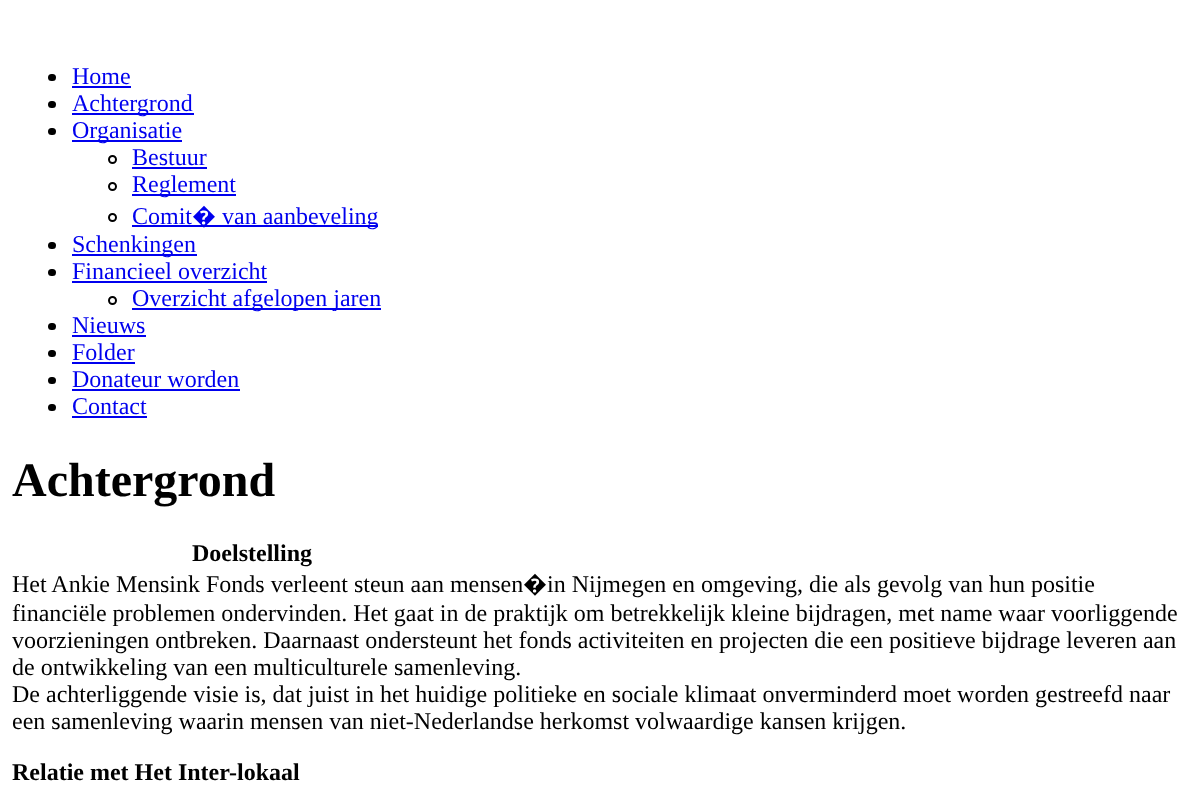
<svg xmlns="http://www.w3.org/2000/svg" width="1197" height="792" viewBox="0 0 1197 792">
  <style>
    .t1 { font: 24px Liberation Serif; fill: #00e; }
    .t2 { font: 24px Noto Sans; fill: #00e; }
    .t3 { font: bold 48px Liberation Serif; fill: #000; }
    .t4 { font: bold 24px Liberation Serif; fill: #000; }
    .t5 { font: 24px Liberation Serif; fill: #000; }
    .t6 { font: 24px Noto Sans; fill: #000; }
  </style>
  <rect width="100%" height="100%" fill="#fff"/>
  <rect x="48" y="74" width="8" height="7" rx="3.5" fill="#000"/>
  <text x="72" y="84" class="t1">Home</text>
  <rect x="72" y="86" width="59" height="2" fill="#00e"/>
  <rect x="48" y="101" width="8" height="7" rx="3.5" fill="#000"/>
  <rect x="72" y="113" width="122" height="2" fill="#00e"/>
  <text x="72" y="111" class="t1">Achtergrond</text>
  <rect x="48" y="128" width="8" height="7" rx="3.5" fill="#000"/>
  <rect x="72" y="140" width="110" height="2" fill="#00e"/>
  <text x="72" y="138" class="t1">Organisatie</text>
  <circle cx="112.5" cy="159.5" r="3.5" fill="none" stroke="#000" stroke-width="2"/>
  <text x="132" y="165" class="t1">Bestuur</text>
  <rect x="132" y="167" width="75" height="2" fill="#00e"/>
  <circle cx="112.5" cy="186.5" r="3.5" fill="none" stroke="#000" stroke-width="2"/>
  <rect x="132" y="194" width="104" height="2" fill="#00e"/>
  <text x="132" y="192" class="t1">Reglement</text>
  <circle cx="112.5" cy="217.5" r="3.5" fill="none" stroke="#000" stroke-width="2"/>
  <text x="132" y="224" class="t1">Comit</text>
  <rect x="132" y="225" width="246" height="2" fill="#00e"/>
  <text x="192" y="224" class="t2">�</text>
  <text x="222" y="224" class="t1">van aanbeveling</text>
  <rect x="48" y="242" width="8" height="7" rx="3.5" fill="#000"/>
  <rect x="72" y="254" width="125" height="2" fill="#00e"/>
  <text x="72" y="252" class="t1">Schenkingen</text>
  <rect x="48" y="269" width="8" height="7" rx="3.5" fill="#000"/>
  <text x="72" y="279" class="t1">Financieel overzicht</text>
  <rect x="72" y="281" width="195" height="2" fill="#00e"/>
  <circle cx="112.5" cy="300.5" r="3.5" fill="none" stroke="#000" stroke-width="2"/>
  <rect x="132" y="308" width="249" height="2" fill="#00e"/>
  <text x="132" y="306" class="t1">Overzicht afgelopen jaren</text>
  <rect x="48" y="323" width="8" height="7" rx="3.5" fill="#000"/>
  <text x="72" y="333" class="t1">Nieuws</text>
  <rect x="72" y="335" width="74" height="2" fill="#00e"/>
  <rect x="48" y="350" width="8" height="7" rx="3.5" fill="#000"/>
  <text x="72" y="360" class="t1">Folder</text>
  <rect x="72" y="362" width="63" height="2" fill="#00e"/>
  <rect x="48" y="377" width="8" height="7" rx="3.5" fill="#000"/>
  <text x="72" y="387" class="t1">Donateur worden</text>
  <rect x="72" y="389" width="168" height="2" fill="#00e"/>
  <rect x="48" y="404" width="8" height="7" rx="3.5" fill="#000"/>
  <text x="72" y="414" class="t1">Contact</text>
  <rect x="72" y="416" width="75" height="2" fill="#00e"/>
  <text x="12" y="496" class="t3">Achtergrond</text>
  <text x="192" y="561" class="t4">Doelstelling</text>
  <text x="12" y="592" class="t5">Het Ankie Mensink Fonds verleent steun aan mensen</text>
  <text x="523" y="592" class="t6">�</text>
  <text x="547" y="592" class="t5">in Nijmegen en omgeving, die als gevolg van hun positie</text>
  <text x="12" y="621" class="t5">financiële problemen ondervinden. Het gaat in de praktijk om betrekkelijk kleine bijdragen, met name waar voorliggende</text>
  <text x="12" y="648" class="t5">voorzieningen ontbreken. Daarnaast ondersteunt het fonds activiteiten en projecten die een positieve bijdrage leveren aan</text>
  <text x="12" y="675" class="t5">de ontwikkeling van een multiculturele samenleving.</text>
  <text x="12" y="702" class="t5">De achterliggende visie is, dat juist in het huidige politieke en sociale klimaat onverminderd moet worden gestreefd naar</text>
  <text x="12" y="729" class="t5">een samenleving waarin mensen van niet-Nederlandse herkomst volwaardige kansen krijgen.</text>
  <text x="12" y="780" class="t4">Relatie met Het Inter-lokaal</text>
</svg>
